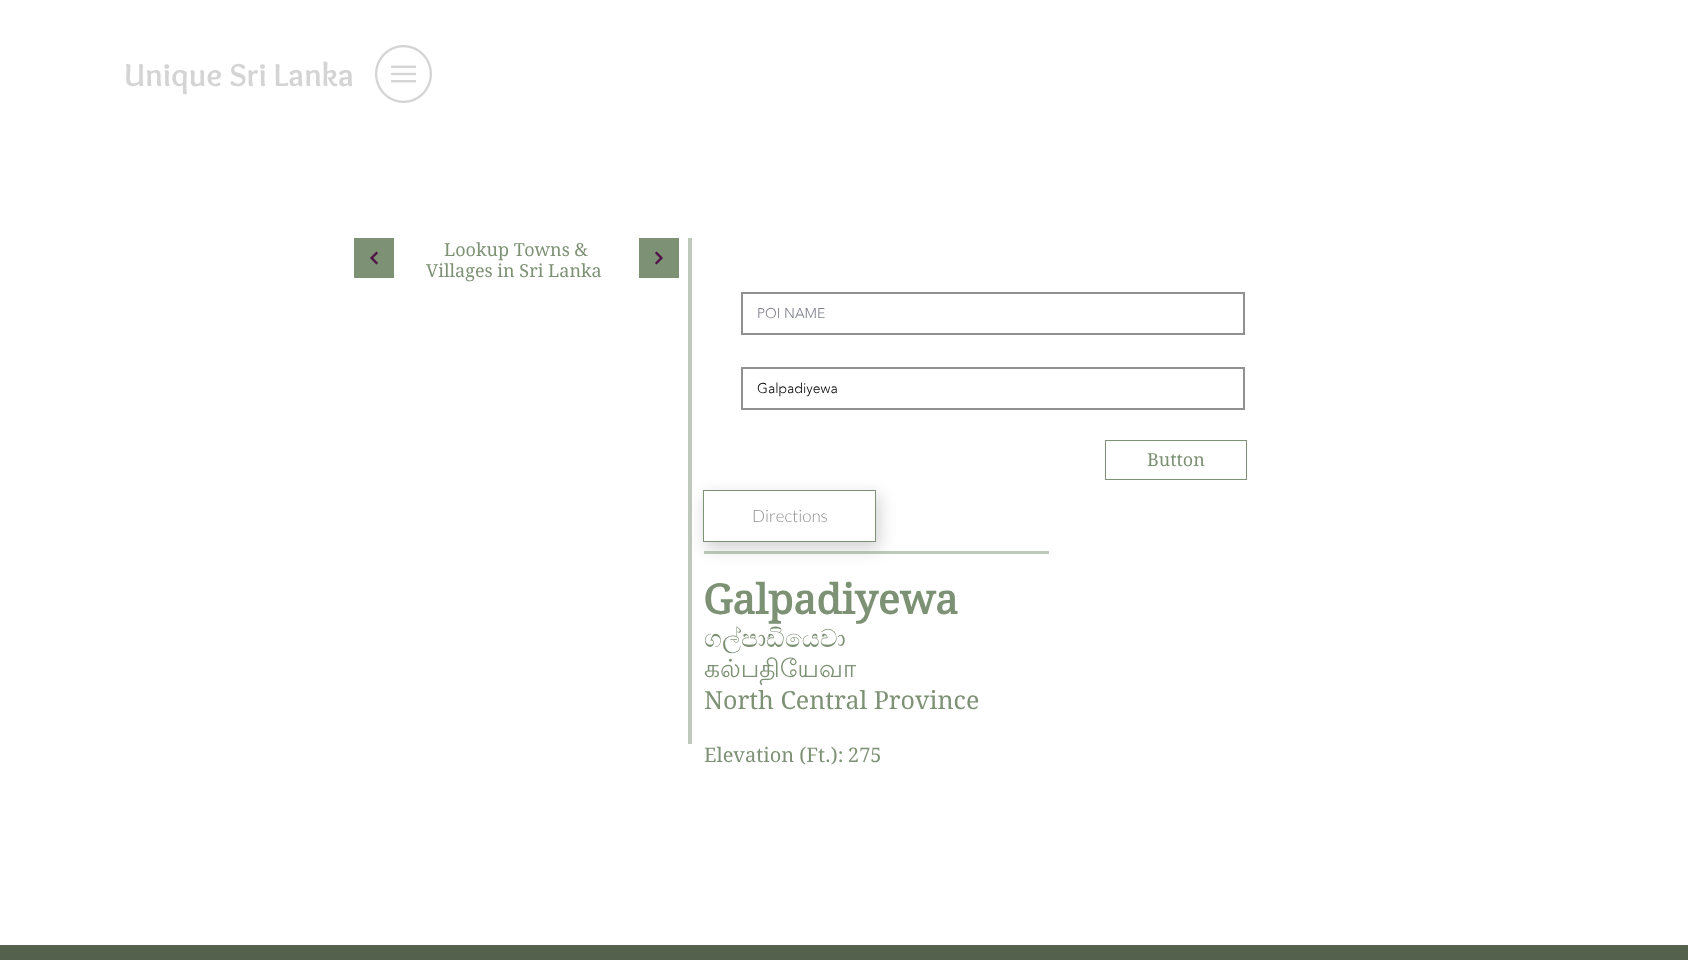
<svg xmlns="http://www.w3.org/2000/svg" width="1688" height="960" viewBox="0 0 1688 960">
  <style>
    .t1 { font: bold 33px Overlock; fill: #d4d4d4; }
    .t2 { font: 18px 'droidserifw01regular'; fill: #7d9174; }
    .t3 { font: 300 14px 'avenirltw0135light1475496'; fill: #7f808a; }
    .t4 { font: 300 14px 'avenirltw0135light1475496'; fill: #000; }
    .t5 { font: 300 17px Lato; fill: #909090; }
    .t6 { font: bold 41px 'droidserifw01regular'; fill: #7d9174; }
    .t7 { font: 25px FreeSerif; fill: #7d9174; }
    .t8 { font: 25px Lohit Tamil; fill: #7d9174; }
    .t9 { font: 25px 'droidserifw01regular'; fill: #7d9174; }
    .t10 { font: 20px 'droidserifw01regular'; fill: #7d9174; }
  </style>
  <defs>
    <clipPath id="clip1"><path d="M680 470H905V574H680ZM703 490H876V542H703Z" clip-rule="evenodd"/></clipPath>
  </defs>
  <rect width="100%" height="100%" fill="#fff"/>
  <text x="124" y="86" class="t1">Unique Sri Lanka</text>
  <image x="375" y="45" width="57" height="58" href="images/1.png"/>
  <rect x="354" y="238" width="40" height="40" fill="#7d9174"/>
  <image x="370" y="251" width="8" height="14" href="images/2.png"/>
  <text x="444" y="256" class="t2">Lookup Towns &amp;</text>
  <text x="426" y="277" class="t2">Villages in Sri Lanka</text>
  <rect x="639" y="238" width="40" height="40" fill="#7d9174"/>
  <image x="655" y="251" width="8" height="14" href="images/3.png"/>
  <g clip-path="url(#clip1)">
    <rect x="705" y="495" width="175" height="54" fill="#0000002b" filter="blur(8px)"/>
  </g>
  <rect x="688" y="238" width="4" height="506" fill="#bfc9bb"/>
  <rect x="742" y="293" width="502" height="41" fill="none" stroke="#919191" stroke-width="2"/>
  <text x="757" y="318" class="t3">POI NAME</text>
  <rect x="742" y="368" width="502" height="41" fill="none" stroke="#919191" stroke-width="2"/>
  <text x="757" y="393" class="t4">Galpadiyewa</text>
  <rect x="1105.5" y="440.5" width="141" height="39" fill="none" stroke="#7d9174"/>
  <text x="1147" y="466" class="t2">Button</text>
  <rect x="703.5" y="490.5" width="172" height="51" fill="none" stroke="#7d9174"/>
  <text x="752" y="522" class="t5">Directions</text>
  <rect x="704" y="551" width="345" height="3" fill="#7d91747d"/>
  <text x="703" y="614" class="t6">Galpadiyewa</text>
  <text x="704" y="647" class="t7">ගල්පාඩියෙවා</text>
  <text x="704" y="677" class="t8">கல்பதியேவா</text>
  <text x="704" y="709" class="t9">North Central Province</text>
  <text x="704" y="762" class="t10">Elevation (Ft.):</text>
  <text x="848" y="762" class="t10">275</text>
  <rect x="0" y="945" width="1688" height="15" fill="#53614d"/>
</svg>
